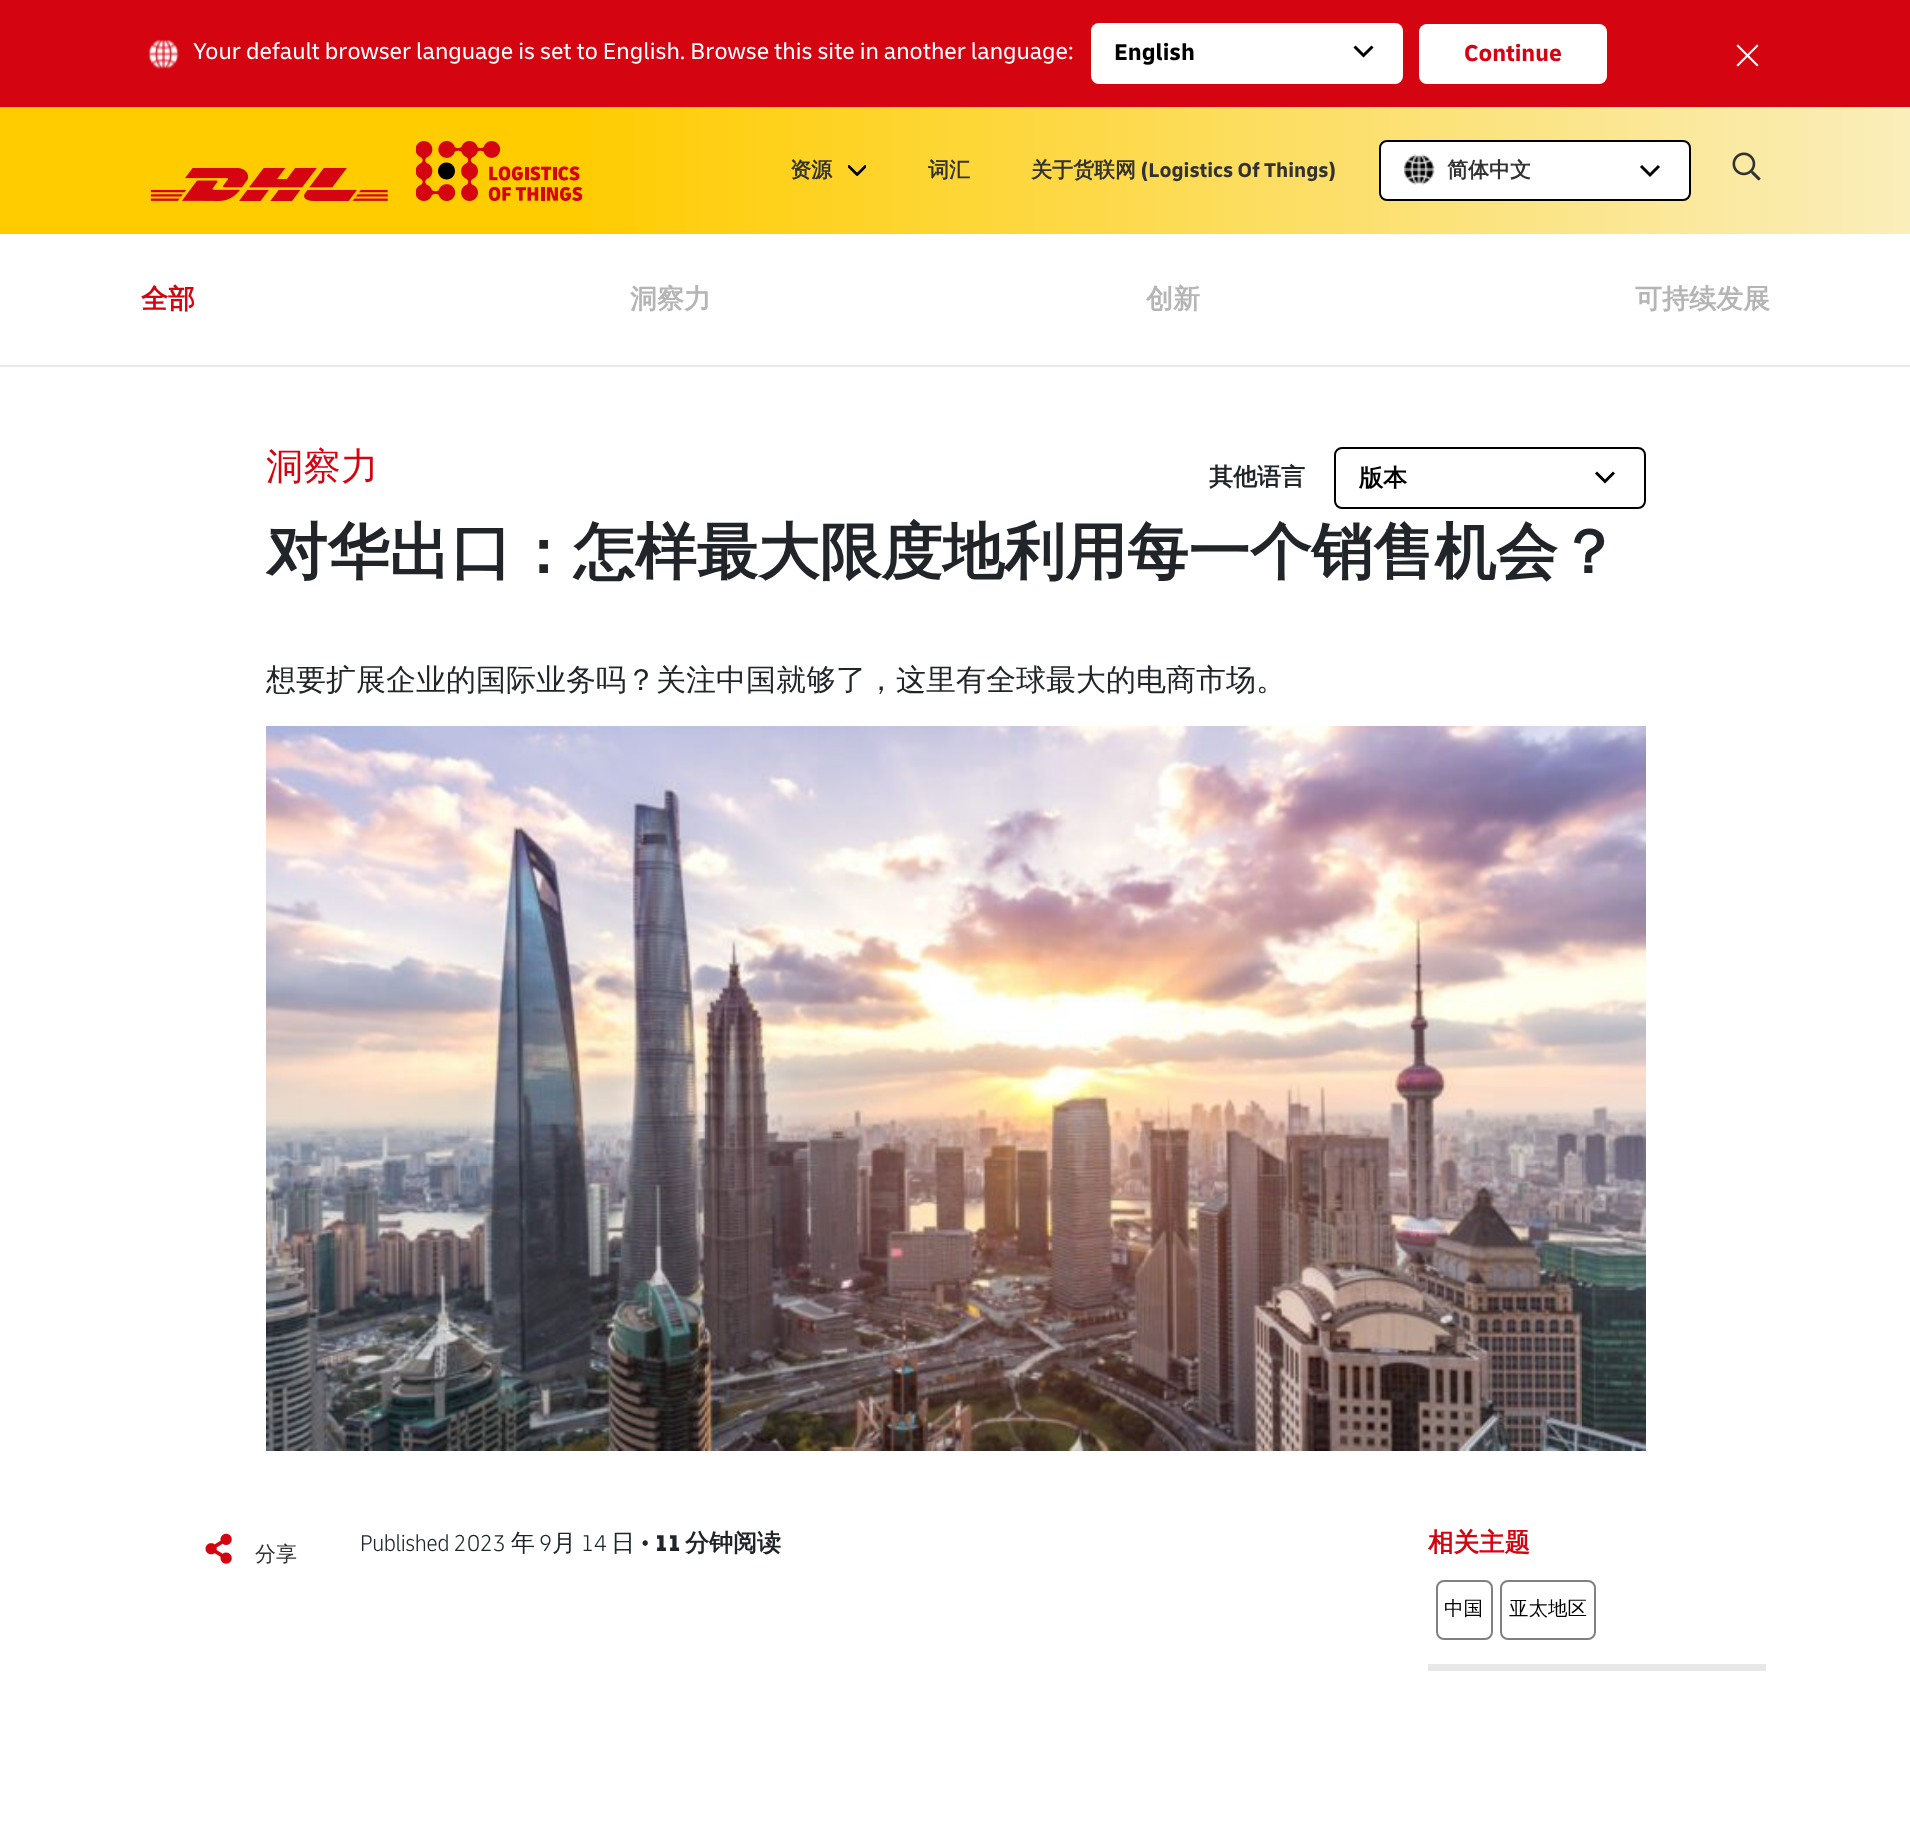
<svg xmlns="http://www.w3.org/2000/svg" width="1910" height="1841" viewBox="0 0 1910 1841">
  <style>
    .t1 { font: 24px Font; fill: #fff; }
    .t2 { font: bold 24px Font; fill: #000; }
    .t3 { font: bold 24px Font; fill: #d40511; }
    .t4 { font: bold 21px WenQuanYi Zen Hei; fill: #323232; }
    .t5 { font: bold 21px Font; fill: #323232; }
    .t6 { font: bold 27px WenQuanYi Zen Hei; fill: #d40511; }
    .t7 { font: bold 27px WenQuanYi Zen Hei; fill: #b5b5b5; }
    .t8 { font: 500 37.5px WenQuanYi Zen Hei; fill: #d40511; }
    .t9 { font: bold 24px WenQuanYi Zen Hei; fill: #212529; }
    .t10 { font: bold 24px WenQuanYi Zen Hei; fill: #000; }
    .t11 { font: bold 61.5px WenQuanYi Zen Hei; fill: #212529; }
    .t12 { font: 500 30px WenQuanYi Zen Hei; fill: #212529; }
    .t13 { font: 500 21px WenQuanYi Zen Hei; fill: #323232; }
    .t14 { font: 300 24px Font; fill: #212529; }
    .t15 { font: 500 24px WenQuanYi Zen Hei; fill: #212529; }
    .t16 { font: 800 24px Font; fill: #212529; }
    .t17 { font: bold 25.5px WenQuanYi Zen Hei; fill: #d40511; }
    .t18 { font: 500 19.5px WenQuanYi Zen Hei; fill: #000; }
  </style>
  <defs>
    <linearGradient id="g1" gradientUnits="userSpaceOnUse" x1="0" y1="170" x2="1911" y2="170"><stop offset="0" stop-color="#fc0"/><stop offset="0.3" stop-color="#fc0"/><stop offset="1" stop-color="#faeebb"/></linearGradient>
  </defs>
  <rect width="100%" height="100%" fill="#fff"/>
  <rect x="0" y="0" width="1910" height="107" fill="#d40511"/>
  <image x="148" y="39" width="31" height="30" href="images/1.png"/>
  <text x="193" y="59" class="t1">Your default browser language is set to English. Browse this site in another language:</text>
  <rect x="1091" y="23" width="312" height="61" rx="8" fill="#fff"/>
  <text x="1114" y="60" class="t2">English</text>
  <path d="M1372.5 46.5L1363.5 55.5L1354.5 46.5" fill="none" stroke="#000" stroke-width="3"/>
  <rect x="1419" y="24" width="188" height="60" rx="8" fill="#fff"/>
  <text x="1464" y="61" class="t3">Continue</text>
  <image x="1736" y="44" width="23" height="23" href="images/2.png"/>
  <rect x="0" y="107" width="1910" height="127" fill="url(#g1)"/>
  <image x="150" y="168" width="238" height="33" href="images/3.png"/>
  <image x="416" y="141" width="166" height="60" href="images/4.png"/>
  <text x="790" y="177" class="t4">资源</text>
  <image x="848" y="165" width="18" height="11" href="images/5.png"/>
  <text x="928" y="177" class="t4">词汇</text>
  <text x="1031" y="177" class="t4">关于货联网</text>
  <text x="1140" y="177" class="t5">(Logistics Of Things)</text>
  <rect x="1380" y="141" width="310" height="59" rx="7" fill="#fff" stroke="#000" stroke-width="2"/>
  <image x="1404" y="154" width="31" height="31" href="images/6.png"/>
  <text x="1447" y="177" class="t4">简体中文</text>
  <path d="M1659 166L1650 175L1641 166" fill="none" stroke="#000" stroke-width="3"/>
  <image x="1732" y="152" width="29" height="29" href="images/7.png"/>
  <rect x="0" y="365" width="1910" height="2" fill="#e8e8e8"/>
  <text x="141" y="308" class="t6">全部</text>
  <text x="630" y="308" class="t7">洞察力</text>
  <text x="1146" y="308" class="t7">创新</text>
  <text x="1635" y="308" class="t7">可持续发展</text>
  <text x="266" y="479" class="t8">洞察力</text>
  <text x="1209" y="485" class="t9">其他语言</text>
  <rect x="1335" y="448" width="310" height="60" rx="7" fill="none" stroke="#000" stroke-width="2"/>
  <text x="1359" y="486" class="t10">版本</text>
  <path d="M1614 472.5L1605 481.5L1596 472.5" fill="none" stroke="#000" stroke-width="3"/>
  <text x="266" y="573" class="t11">对华出口：怎样最大限度地利用每一个销售机会？</text>
  <text x="266" y="690" class="t12">想要扩展企业的国际业务吗？关注中国就够了，这里有全球最大的电商市场。</text>
  <image x="266" y="726" width="1380" height="725" href="images/8.png"/>
  <image x="205" y="1533" width="27" height="31" href="images/9.png"/>
  <text x="255" y="1561" class="t13">分享</text>
  <text x="360" y="1551" class="t14">Published 2023</text>
  <text x="511" y="1551" class="t15">年</text>
  <text x="539" y="1551" class="t14">9</text>
  <text x="552" y="1551" class="t15">月</text>
  <text x="581" y="1551" class="t14">14</text>
  <text x="611" y="1551" class="t15">日</text>
  <text x="640" y="1551" class="t14">•</text>
  <text x="655" y="1551" class="t16">11</text>
  <text x="685" y="1551" class="t9">分钟阅读</text>
  <text x="1428" y="1551" class="t17">相关主题</text>
  <rect x="1437" y="1581" width="55" height="58" rx="7" fill="none" stroke="#808080" stroke-width="2"/>
  <text x="1444" y="1615" class="t18">中国</text>
  <rect x="1501" y="1581" width="94" height="58" rx="7" fill="none" stroke="#808080" stroke-width="2"/>
  <text x="1509" y="1615" class="t18">亚太地区</text>
  <rect x="1428" y="1664" width="338" height="7" fill="#e8e8e8"/>
</svg>
